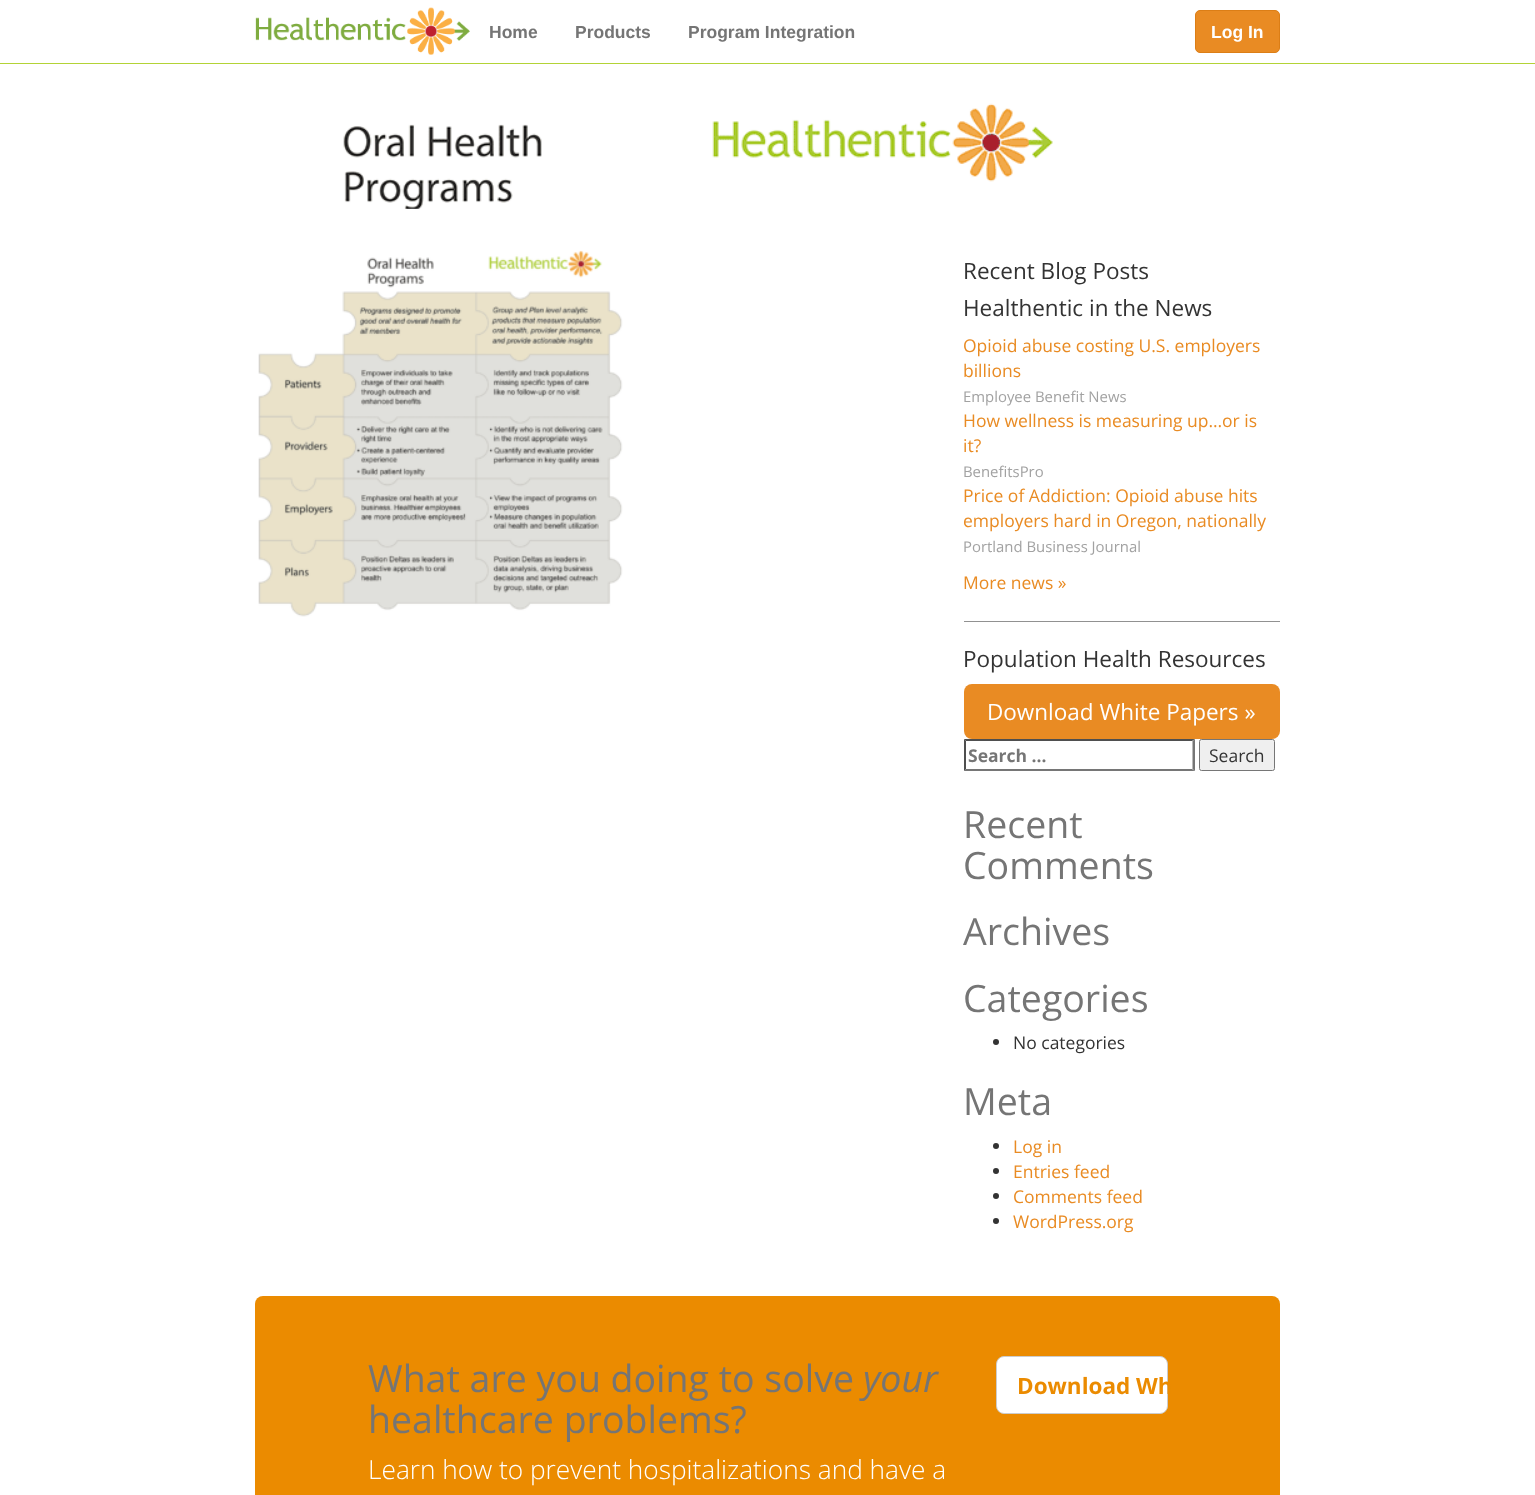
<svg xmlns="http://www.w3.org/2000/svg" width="1535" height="1495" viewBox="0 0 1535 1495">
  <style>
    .t1 { font: bold 17.5px Liberation Sans; fill: #757575; }
    .t2 { font: bold 17.5px Liberation Sans; fill: #fff; }
    .t3 { font: 22.5px Open Sans; fill: #333; }
    .t4 { font: 17.5px Open Sans; fill: #e98b23; }
    .t5 { font: 14.9px Open Sans; fill: #a2a2a2; }
    .t6 { font: 22.5px Open Sans; fill: #fff; }
    .t7 { font: bold 17.5px Open Sans; fill: #757575; }
    .t8 { font: 17.5px Open Sans; fill: #333; }
    .t9 { font: 37.5px Open Sans; fill: #757575; }
    .t10 { font: italic 37.5px Open Sans; fill: #757575; }
    .t11 { font: 300 26.25px Open Sans; fill: #fff; }
    .t12 { font: bold 22.5px Open Sans; fill: #eb8b00; }
  </style>
  <rect width="100%" height="100%" fill="#fff"/>
  <rect x="0" y="63" width="1535" height="1" fill="#b3d336"/>
  <image x="255" y="7" width="215" height="48" href="images/1.png"/>
  <text x="489" y="38" class="t1">Home</text>
  <text x="575" y="38" class="t1">Products</text>
  <text x="688" y="38" class="t1">Program Integration</text>
  <rect x="1195.5" y="10.5" width="84" height="42" rx="4.5" fill="#e98b23" stroke="#dc7e16"/>
  <text x="1211" y="38" class="t2">Log In</text>
  <image x="343" y="103" width="710" height="106" href="images/2.png"/>
  <image x="258" y="250" width="365" height="367" href="images/3.png"/>
  <text x="963" y="279" class="t3">Recent Blog Posts</text>
  <text x="963" y="316" class="t3">Healthentic in the News</text>
  <text x="963" y="352" class="t4">Opioid abuse costing U.S. employers</text>
  <text x="963" y="377" class="t4">billions</text>
  <text x="963" y="402" class="t5">Employee Benefit News</text>
  <text x="963" y="427" class="t4">How wellness is measuring up…or is</text>
  <text x="963" y="452" class="t4">it?</text>
  <text x="963" y="477" class="t5">BenefitsPro</text>
  <text x="963" y="502" class="t4">Price of Addiction: Opioid abuse hits</text>
  <text x="963" y="527" class="t4">employers hard in Oregon, nationally</text>
  <text x="963" y="552" class="t5">Portland Business Journal</text>
  <text x="963" y="589" class="t4">More news »</text>
  <rect x="964" y="621" width="316" height="1" fill="#919191"/>
  <text x="963" y="667" class="t3">Population Health Resources</text>
  <rect x="964" y="684" width="316" height="55" rx="8" fill="#e98b23"/>
  <text x="987" y="720" class="t6">Download White Papers »</text>
  <path d="M964 739H1195L1192 741H966Z" fill="#4f4f4f"/>
  <path d="M1195 739V771L1192.5 769V741Z" fill="#767676"/>
  <path d="M1195 771H964L966 769H1192Z" fill="#767676"/>
  <path d="M964 771V739L966 741V769Z" fill="#4f4f4f"/>
  <text x="968" y="762" class="t7">Search …</text>
  <rect x="1199.5" y="739.5" width="75" height="31" rx="2" fill="#efefef" stroke="#767676"/>
  <text x="1209" y="762" class="t8">Search</text>
  <text x="963" y="838" class="t9">Recent</text>
  <text x="963" y="879" class="t9">Comments</text>
  <text x="963" y="945" class="t9">Archives</text>
  <text x="963" y="1012" class="t9">Categories</text>
  <circle cx="996" cy="1042" r="3" fill="#333"/>
  <text x="1013" y="1049" class="t8">No categories</text>
  <text x="963" y="1115" class="t9">Meta</text>
  <circle cx="996" cy="1146" r="3" fill="#333"/>
  <text x="1013" y="1153" class="t4">Log in</text>
  <circle cx="996" cy="1171" r="3" fill="#333"/>
  <text x="1013" y="1178" class="t4">Entries feed</text>
  <circle cx="996" cy="1196" r="3" fill="#333"/>
  <text x="1013" y="1203" class="t4">Comments feed</text>
  <circle cx="996" cy="1221" r="3" fill="#333"/>
  <text x="1013" y="1228" class="t4">WordPress.org</text>
  <rect x="255" y="1296" width="1025" height="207" rx="8" fill="#eb8b00"/>
  <text x="368" y="1392" class="t9">What are you doing to solve</text>
  <text x="863" y="1392" class="t10">your</text>
  <text x="368" y="1433" class="t9">healthcare problems?</text>
  <text x="368" y="1479" class="t11">Learn how to prevent hospitalizations and have a</text>
  <rect x="996.5" y="1356.5" width="171" height="57" rx="7.5" fill="#fff" stroke="#ccc"/>
  <text x="1017" y="1394" class="t12">Download Wh</text>
</svg>
